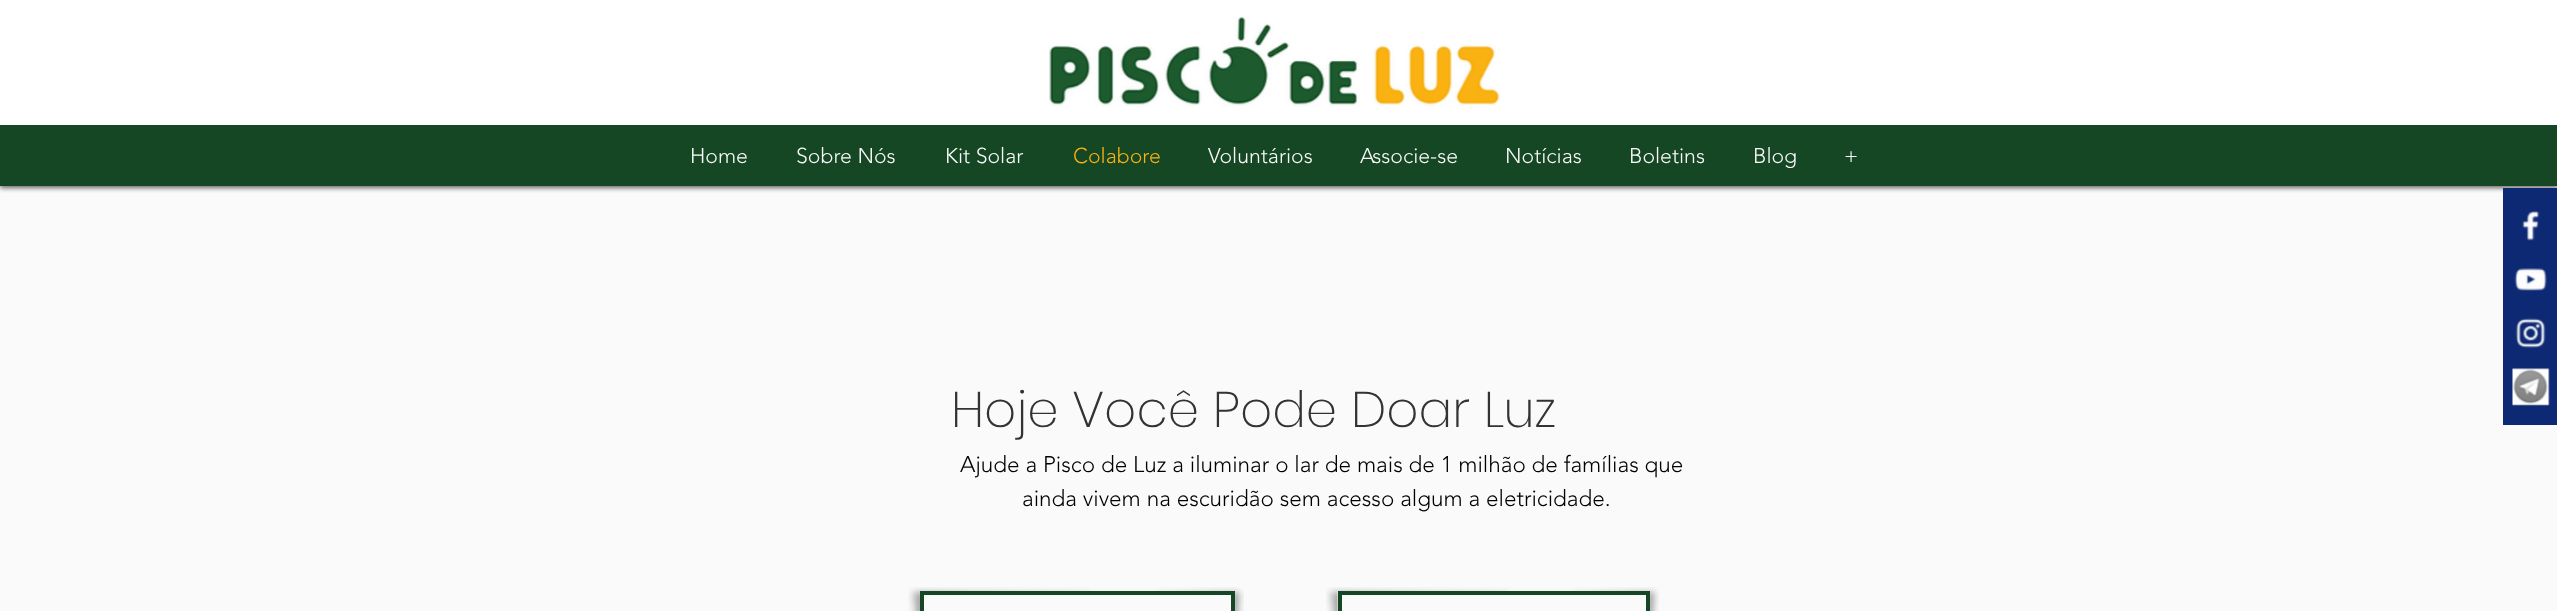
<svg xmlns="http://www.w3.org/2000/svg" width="2557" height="611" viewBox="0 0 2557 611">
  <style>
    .t1 { font: 300 21.25px 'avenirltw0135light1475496'; fill: #fafafa; }
    .t2 { font: 300 21.25px 'avenirltw0135light1475496'; fill: #fab212; }
    .t3 { font: 200 50px Poppins; fill: #333; }
    .t4 { font: 300 22.5px 'avenirltw0135light1475496'; fill: #000; }
  </style>
  <rect width="100%" height="100%" fill="#fafafa"/>
  <rect x="0" y="1" width="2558" height="187" fill="#00000099" filter="blur(2.5px)"/>
  <rect x="0" y="125" width="2557" height="61" fill="#164724"/>
  <rect x="0" y="0" width="2557" height="125" fill="#fff"/>
  <image x="1049" y="17" width="452" height="90" href="images/1.png"/>
  <text x="690" y="163" class="t1">Home</text>
  <text x="796" y="163" class="t1">Sobre Nós</text>
  <text x="945" y="163" class="t1">Kit Solar</text>
  <text x="1073" y="163" class="t2">Colabore</text>
  <text x="1208" y="163" class="t1">Voluntários</text>
  <text x="1360" y="163" class="t1">Associe-se</text>
  <text x="1505" y="163" class="t1">Notícias</text>
  <text x="1629" y="163" class="t1">Boletins</text>
  <text x="1753" y="163" class="t1">Blog</text>
  <text x="1844" y="163" class="t1">+</text>
  <rect x="2503" y="188" width="54" height="237" fill="#0e2973"/>
  <image x="2522" y="211" width="18" height="30" href="images/2.png"/>
  <image x="2514" y="268" width="33" height="23" href="images/3.png"/>
  <image x="2515" y="318" width="31" height="30" href="images/4.png"/>
  <image x="2512" y="368" width="38" height="38" href="images/5.png"/>
  <text x="951" y="427" class="t3">Hoje Você Pode Doar Luz</text>
  <text x="960" y="472" class="t4">Ajude a Pisco de Luz a iluminar o lar de mais de 1 milhão de famílias que</text>
  <text x="1022" y="506" class="t4">ainda vivem na escuridão sem acesso algum a eletricidade.</text>
  <image x="908" y="587" width="182" height="24" href="images/6.png"/>
  <image x="1157" y="587" width="87" height="24" href="images/7.png"/>
  <rect x="920" y="593" width="315" height="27" fill="#0000001a" filter="blur(3px)"/>
  <rect x="922" y="593" width="311" height="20" fill="#fafafa" stroke="#164724" stroke-width="4"/>
  <image x="1326" y="587" width="182" height="24" href="images/8.png"/>
  <image x="1572" y="587" width="87" height="24" href="images/9.png"/>
  <rect x="1338" y="593" width="312" height="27" fill="#0000001a" filter="blur(3px)"/>
  <rect x="1340" y="593" width="308" height="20" fill="#fafafa" stroke="#164724" stroke-width="4"/>
</svg>
